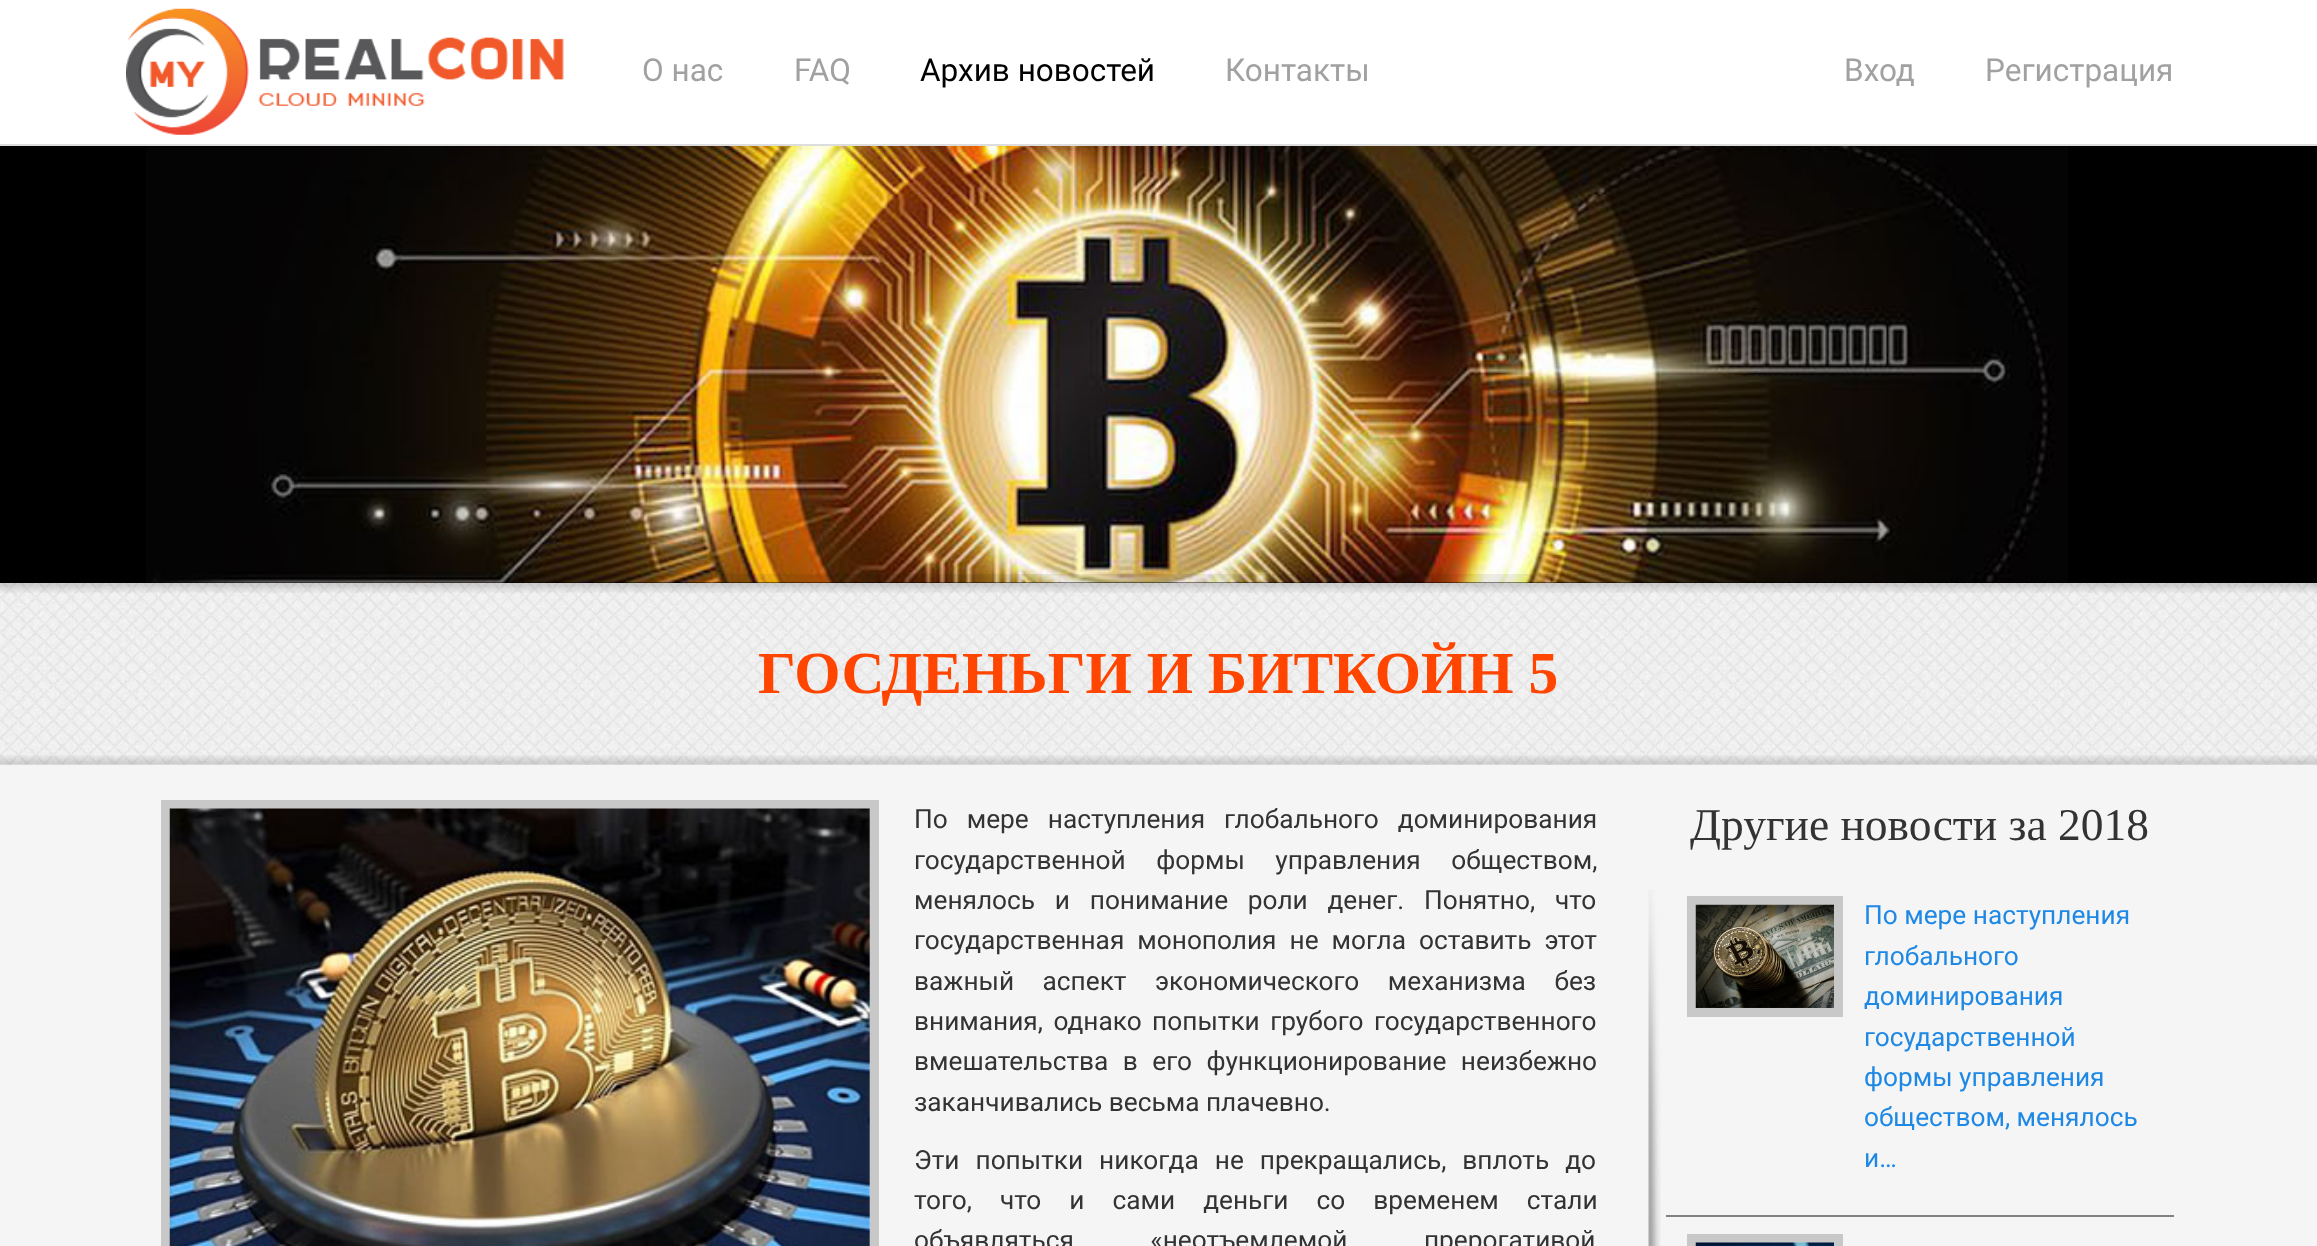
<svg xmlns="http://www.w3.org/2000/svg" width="2317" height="1246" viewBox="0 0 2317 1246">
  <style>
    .t1 { font: 31.5px Roboto; fill: #a1a1a1; }
    .t2 { font: 31.5px Roboto; fill: #000; }
    .t3 { font: bold 59.5px Liberation Serif; fill: #ff4500; }
    .t4 { font: 26.25px Roboto; fill: #333; }
    .t5 { font: 45.5px Liberation Serif; fill: #333; }
    .t6 { font: 26.25px Roboto; fill: #1e88e5; }
  </style>
  <rect width="100%" height="100%" fill="#f5f5f5"/>
  <rect x="0" y="0" width="2317" height="144" fill="#fff"/>
  <rect x="0" y="144" width="2317" height="2" fill="#ddd"/>
  <image x="126" y="8" width="438" height="127" href="images/1.png"/>
  <text x="642" y="81" class="t1">О нас</text>
  <text x="794" y="81" class="t1">FAQ</text>
  <text x="920" y="81" class="t2">Архив новостей</text>
  <text x="1225" y="81" class="t1">Контакты</text>
  <text x="1844" y="81" class="t1">Вход</text>
  <text x="1985" y="81" class="t1">Регистрация</text>
  <rect x="0" y="146" width="2317" height="437" fill="#000"/>
  <image x="146" y="146" width="1922" height="437" href="images/2.png"/>
  <image x="0" y="583" width="2317" height="182" href="images/3.png"/>
  <image x="0" y="582" width="2317" height="11" href="images/4.png"/>
  <rect x="224" y="574" width="1419" height="9" fill="#00000012"/>
  <text x="758" y="693" class="t3">ГОСДЕНЬГИ И БИТКОЙН 5</text>
  <image x="0" y="755" width="2317" height="10" href="images/5.png"/>
  <image x="1648" y="890" width="13" height="356" href="images/6.png"/>
  <rect x="165.5" y="804.5" width="709" height="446" fill="none" stroke="#c8c8c8" stroke-width="9"/>
  <image x="169" y="808" width="701" height="438" href="images/7.png"/>
  <text x="914" y="828" word-spacing="12.5" class="t4">По мере наступления глобального доминирования</text>
  <text x="914" y="869" word-spacing="24" class="t4">государственной формы управления обществом,</text>
  <text x="914" y="909" word-spacing="13.25" class="t4">менялось и понимание роли денег. Понятно, что</text>
  <text x="914" y="949" word-spacing="6.5" class="t4">государственная монополия не могла оставить этот</text>
  <text x="914" y="990" word-spacing="22" class="t4">важный аспект экономического механизма без</text>
  <text x="914" y="1030" word-spacing="4" class="t4">внимания, однако попытки грубого государственного</text>
  <text x="914" y="1070" word-spacing="8" class="t4">вмешательства в его функционирование неизбежно</text>
  <text x="914" y="1111" class="t4">заканчивались весьма плачевно.</text>
  <text x="914" y="1169" word-spacing="9.5" class="t4">Эти попытки никогда не прекращались, вплоть до</text>
  <text x="914" y="1209" word-spacing="21.5" class="t4">того, что и сами деньги со временем стали</text>
  <text x="914" y="1249" word-spacing="70" class="t4">объявляться «неотъемлемой прерогативой</text>
  <text x="1690" y="840" class="t5">Другие новости за 2018</text>
  <rect x="1666" y="1215" width="508" height="2" fill="#808080"/>
  <rect x="1691.5" y="900.5" width="147" height="112" fill="none" stroke="#c8c8c8" stroke-width="9"/>
  <image x="1695" y="904" width="139" height="104" href="images/8.png"/>
  <text x="1864" y="924" class="t6">По мере наступления</text>
  <text x="1864" y="965" class="t6">глобального</text>
  <text x="1864" y="1005" class="t6">доминирования</text>
  <text x="1864" y="1046" class="t6">государственной</text>
  <text x="1864" y="1086" class="t6">формы управления</text>
  <text x="1864" y="1126" class="t6">обществом, менялось</text>
  <text x="1864" y="1167" class="t6">и…</text>
  <rect x="1691.5" y="1238.5" width="147" height="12" fill="none" stroke="#c8c8c8" stroke-width="9"/>
  <image x="1695" y="1242" width="139" height="4" href="images/9.png"/>
</svg>
